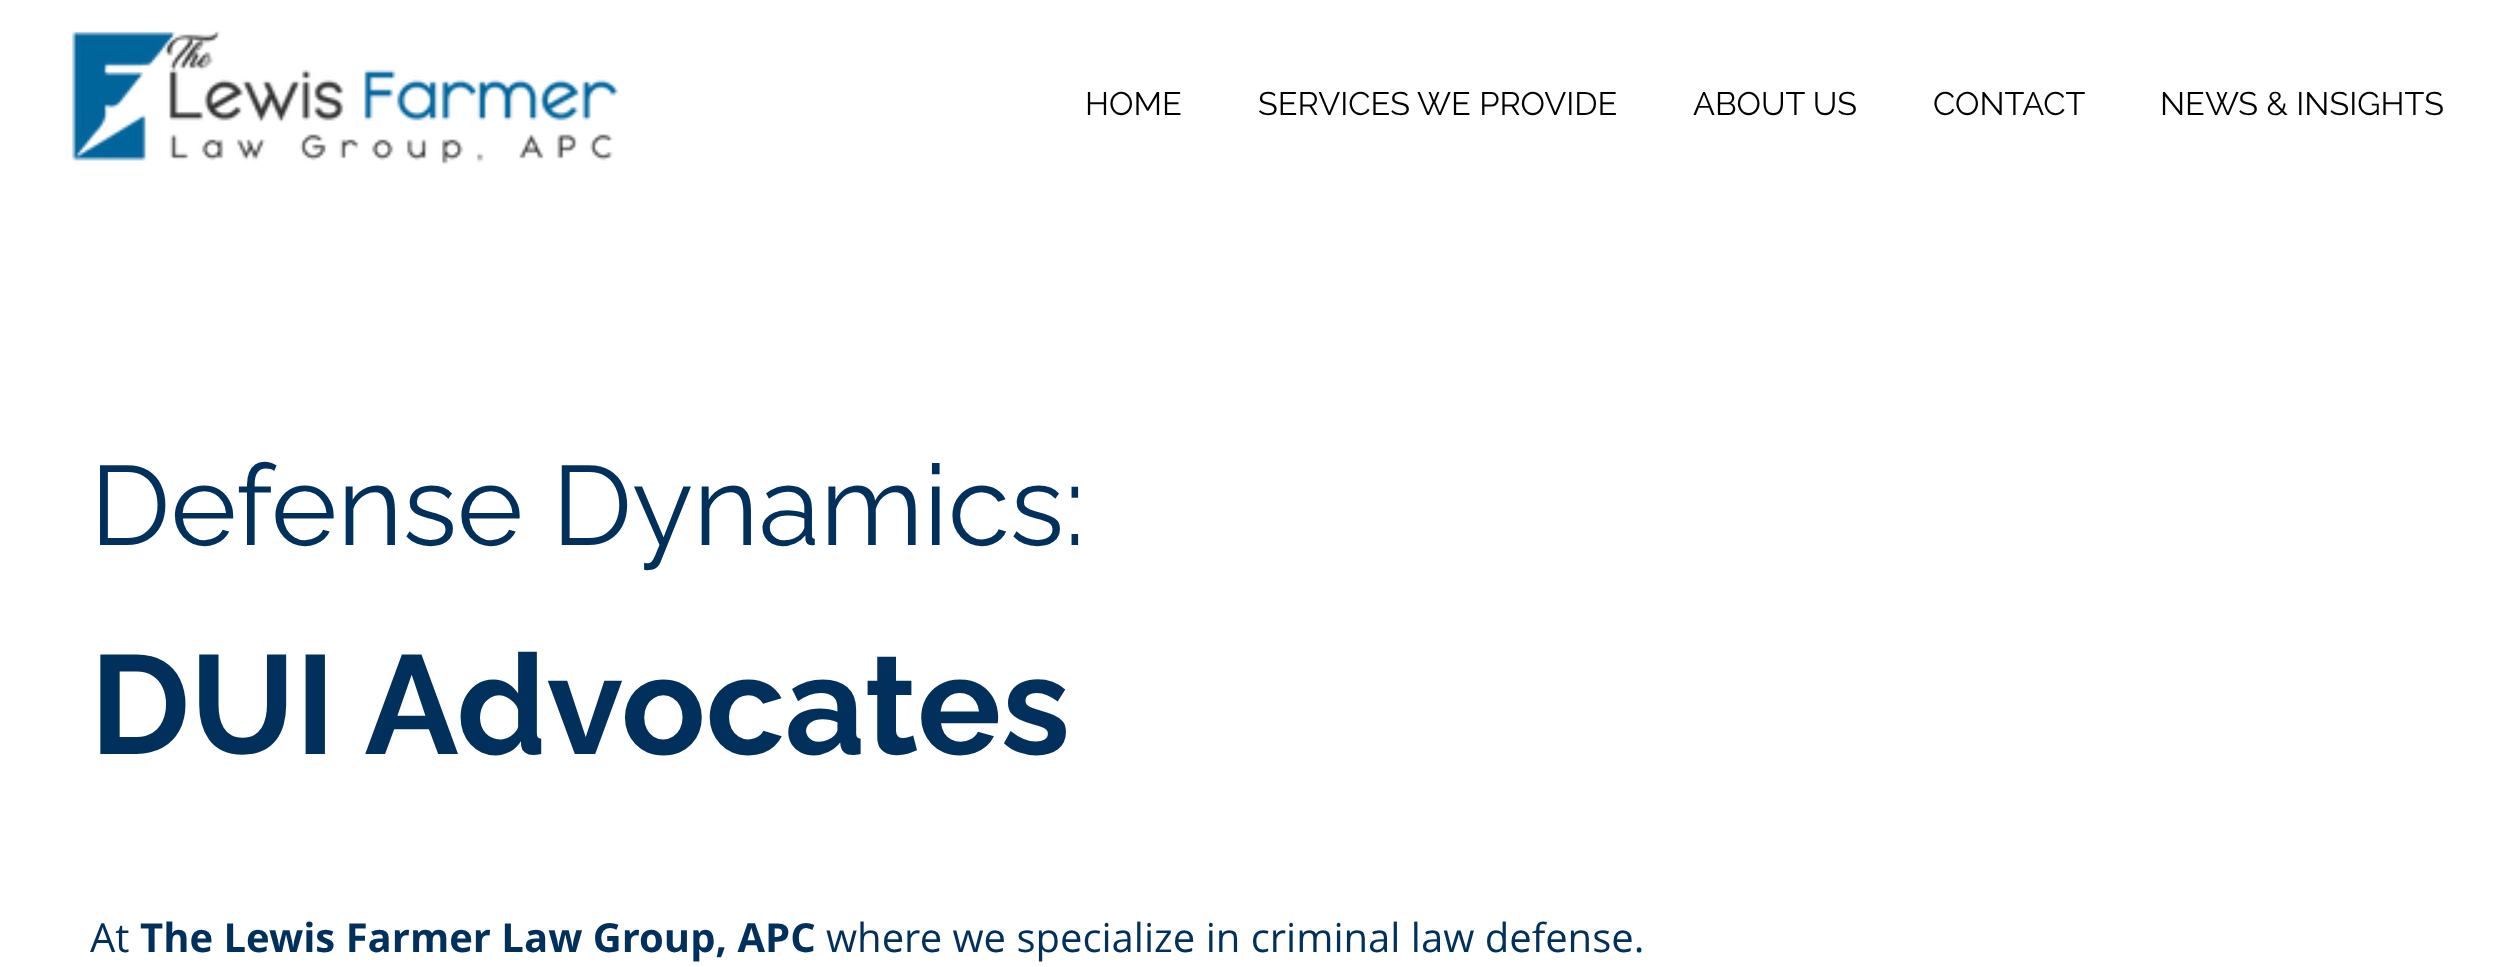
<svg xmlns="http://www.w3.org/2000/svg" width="2519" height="967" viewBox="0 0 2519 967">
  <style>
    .t1 { font: 32.5px Raleway; fill: #000; }
    .t2 { font: 112.5px Raleway; fill: #00305b; }
    .t3 { font: bold 140px Raleway; fill: #00305b; }
    .t4 { font: 40px Open Sans; fill: #00305b; }
    .t5 { font: bold 40px Open Sans; fill: #00305b; }
  </style>
  <rect width="100%" height="100%" fill="#fff"/>
  <image x="71" y="31" width="548" height="134" href="images/1.png"/>
  <text x="1085" y="115" class="t1">HOME</text>
  <text x="1258" y="115" class="t1">SERVICES WE PROVIDE</text>
  <text x="1693" y="115" class="t1">ABOUT US</text>
  <text x="1933" y="115" class="t1">CONTACT</text>
  <text x="2160" y="115" class="t1">NEWS &amp; INSIGHTS</text>
  <text x="90" y="545" class="t2">Defense Dynamics:</text>
  <text x="90" y="754" class="t3">DUI Advocates</text>
  <text x="90" y="952" class="t4">At</text>
  <text x="140" y="952" class="t5">The Lewis Farmer Law Group, APC</text>
  <text x="826" y="952" class="t4">where we specialize in criminal law defense.</text>
</svg>
